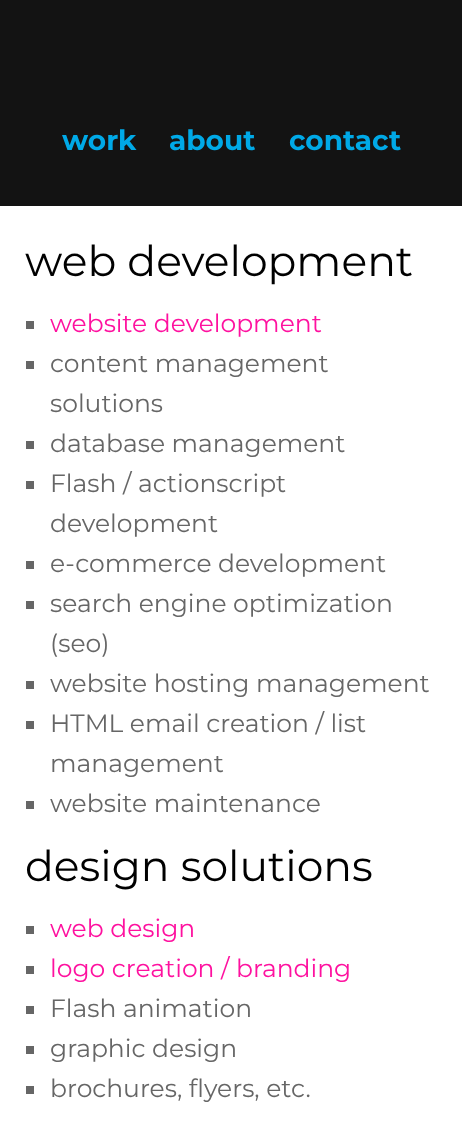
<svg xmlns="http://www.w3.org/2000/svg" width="462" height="1122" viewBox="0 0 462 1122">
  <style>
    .t1 { font: bold 28px Montserrat; fill: #00a9e7; }
    .t2 { font: 42.5px Montserrat; fill: #000; }
    .t3 { font: 25px Montserrat; fill: #fe119f; }
    .t4 { font: 25px Montserrat; fill: #666; }
  </style>
  <rect width="100%" height="100%" fill="#fff"/>
  <rect x="0" y="0" width="462" height="206" fill="#131313"/>
  <text x="62" y="150" class="t1">work</text>
  <text x="169" y="150" class="t1">about</text>
  <text x="289" y="150" class="t1">contact</text>
  <text x="25" y="276" class="t2">web development</text>
  <rect x="26" y="321" width="8" height="8" fill="#666"/>
  <text x="50" y="332" class="t3">website development</text>
  <rect x="26" y="361" width="8" height="8" fill="#666"/>
  <text x="50" y="372" class="t4">content management</text>
  <text x="50" y="412" class="t4">solutions</text>
  <rect x="26" y="441" width="8" height="8" fill="#666"/>
  <text x="50" y="452" class="t4">database management</text>
  <rect x="26" y="481" width="8" height="8" fill="#666"/>
  <text x="50" y="492" class="t4">Flash / actionscript</text>
  <text x="50" y="532" class="t4">development</text>
  <rect x="26" y="561" width="8" height="8" fill="#666"/>
  <text x="50" y="572" class="t4">e-commerce development</text>
  <rect x="26" y="601" width="8" height="8" fill="#666"/>
  <text x="50" y="612" class="t4">search engine optimization</text>
  <text x="50" y="652" class="t4">(seo)</text>
  <rect x="26" y="681" width="8" height="8" fill="#666"/>
  <text x="50" y="692" class="t4">website hosting management</text>
  <rect x="26" y="721" width="8" height="8" fill="#666"/>
  <text x="50" y="732" class="t4">HTML email creation / list</text>
  <text x="50" y="772" class="t4">management</text>
  <rect x="26" y="801" width="8" height="8" fill="#666"/>
  <text x="50" y="812" class="t4">website maintenance</text>
  <text x="25" y="881" class="t2">design solutions</text>
  <rect x="26" y="926" width="8" height="8" fill="#666"/>
  <text x="50" y="937" class="t3">web design</text>
  <rect x="26" y="966" width="8" height="8" fill="#666"/>
  <text x="50" y="977" class="t3">logo creation / branding</text>
  <rect x="26" y="1006" width="8" height="8" fill="#666"/>
  <text x="50" y="1017" class="t4">Flash animation</text>
  <rect x="26" y="1046" width="8" height="8" fill="#666"/>
  <text x="50" y="1057" class="t4">graphic design</text>
  <rect x="26" y="1086" width="8" height="8" fill="#666"/>
  <text x="50" y="1097" class="t4">brochures, flyers, etc.</text>
</svg>
